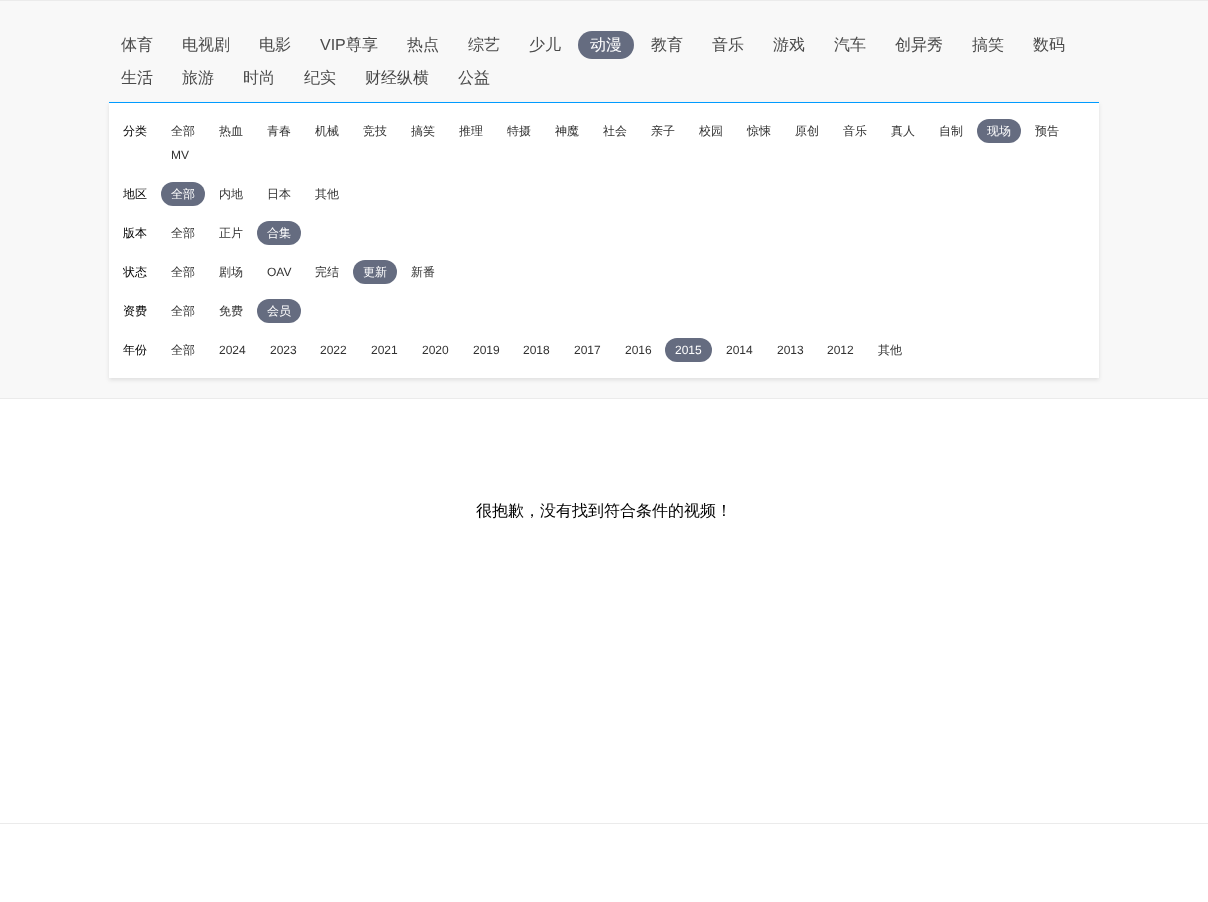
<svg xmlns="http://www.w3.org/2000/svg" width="1208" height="902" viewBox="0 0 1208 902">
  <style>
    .t1 { font: 500 16px WenQuanYi Zen Hei; fill: #4a4a4a; }
    .t2 { font: 16px Liberation Sans; fill: #4a4a4a; }
    .t3 { font: 500 16px WenQuanYi Zen Hei; fill: #fff; }
    .t4 { font: 500 12px WenQuanYi Zen Hei; fill: #000; }
    .t5 { font: 500 12px WenQuanYi Zen Hei; fill: #323232; }
    .t6 { font: 500 12px WenQuanYi Zen Hei; fill: #fff; }
    .t7 { font: 12px Liberation Sans; fill: #323232; }
    .t8 { font: 12px Liberation Sans; fill: #fff; }
    .t9 { font: 500 16px WenQuanYi Zen Hei; fill: #000; }
  </style>
  <rect width="100%" height="100%" fill="#fff"/>
  <rect x="0" y="1" width="1208" height="397" fill="#f8f8f8"/>
  <rect x="0" y="0" width="1208" height="1" fill="#ebebeb"/>
  <rect x="0" y="398" width="1208" height="1" fill="#ebebeb"/>
  <text x="121" y="50" class="t1">体育</text>
  <text x="182" y="50" class="t1">电视剧</text>
  <text x="259" y="50" class="t1">电影</text>
  <text x="320" y="50" class="t2">VIP</text>
  <text x="346" y="50" class="t1">尊享</text>
  <text x="407" y="50" class="t1">热点</text>
  <text x="468" y="50" class="t1">综艺</text>
  <text x="529" y="50" class="t1">少儿</text>
  <rect x="578" y="31" width="56" height="28" rx="14" fill="#656c80"/>
  <text x="590" y="50" class="t3">动漫</text>
  <text x="651" y="50" class="t1">教育</text>
  <text x="712" y="50" class="t1">音乐</text>
  <text x="773" y="50" class="t1">游戏</text>
  <text x="834" y="50" class="t1">汽车</text>
  <text x="895" y="50" class="t1">创异秀</text>
  <text x="972" y="50" class="t1">搞笑</text>
  <text x="1033" y="50" class="t1">数码</text>
  <text x="121" y="83" class="t1">生活</text>
  <text x="182" y="83" class="t1">旅游</text>
  <text x="243" y="83" class="t1">时尚</text>
  <text x="304" y="83" class="t1">纪实</text>
  <text x="365" y="83" class="t1">财经纵横</text>
  <text x="458" y="83" class="t1">公益</text>
  <rect x="109" y="104" width="990" height="276" fill="#0000001a" filter="blur(2px)"/>
  <rect x="109" y="103" width="990" height="275" fill="#fff"/>
  <rect x="109" y="102" width="990" height="1" fill="#009bff"/>
  <text x="123" y="135" class="t4">分类</text>
  <text x="171" y="135" class="t5">全部</text>
  <text x="219" y="135" class="t5">热血</text>
  <text x="267" y="135" class="t5">青春</text>
  <text x="315" y="135" class="t5">机械</text>
  <text x="363" y="135" class="t5">竞技</text>
  <text x="411" y="135" class="t5">搞笑</text>
  <text x="459" y="135" class="t5">推理</text>
  <text x="507" y="135" class="t5">特摄</text>
  <text x="555" y="135" class="t5">神魔</text>
  <text x="603" y="135" class="t5">社会</text>
  <text x="651" y="135" class="t5">亲子</text>
  <text x="699" y="135" class="t5">校园</text>
  <text x="747" y="135" class="t5">惊悚</text>
  <text x="795" y="135" class="t5">原创</text>
  <text x="843" y="135" class="t5">音乐</text>
  <text x="891" y="135" class="t5">真人</text>
  <text x="939" y="135" class="t5">自制</text>
  <rect x="977" y="119" width="44" height="24" rx="12" fill="#656c80"/>
  <text x="987" y="135" class="t6">现场</text>
  <text x="1035" y="135" class="t5">预告</text>
  <text x="171" y="159" class="t7">MV</text>
  <text x="123" y="198" class="t4">地区</text>
  <rect x="161" y="182" width="44" height="24" rx="12" fill="#656c80"/>
  <text x="171" y="198" class="t6">全部</text>
  <text x="219" y="198" class="t5">内地</text>
  <text x="267" y="198" class="t5">日本</text>
  <text x="315" y="198" class="t5">其他</text>
  <text x="123" y="237" class="t4">版本</text>
  <text x="171" y="237" class="t5">全部</text>
  <text x="219" y="237" class="t5">正片</text>
  <rect x="257" y="221" width="44" height="24" rx="12" fill="#656c80"/>
  <text x="267" y="237" class="t6">合集</text>
  <text x="123" y="276" class="t4">状态</text>
  <text x="171" y="276" class="t5">全部</text>
  <text x="219" y="276" class="t5">剧场</text>
  <text x="267" y="276" class="t7">OAV</text>
  <text x="315" y="276" class="t5">完结</text>
  <rect x="353" y="260" width="44" height="24" rx="12" fill="#656c80"/>
  <text x="363" y="276" class="t6">更新</text>
  <text x="411" y="276" class="t5">新番</text>
  <text x="123" y="315" class="t4">资费</text>
  <text x="171" y="315" class="t5">全部</text>
  <text x="219" y="315" class="t5">免费</text>
  <rect x="257" y="299" width="44" height="24" rx="12" fill="#656c80"/>
  <text x="267" y="315" class="t6">会员</text>
  <text x="123" y="354" class="t4">年份</text>
  <text x="171" y="354" class="t5">全部</text>
  <text x="219" y="354" class="t7">2024</text>
  <text x="270" y="354" class="t7">2023</text>
  <text x="320" y="354" class="t7">2022</text>
  <text x="371" y="354" class="t7">2021</text>
  <text x="422" y="354" class="t7">2020</text>
  <text x="473" y="354" class="t7">2019</text>
  <text x="523" y="354" class="t7">2018</text>
  <text x="574" y="354" class="t7">2017</text>
  <text x="625" y="354" class="t7">2016</text>
  <rect x="665" y="338" width="47" height="24" rx="12" fill="#656c80"/>
  <text x="675" y="354" class="t8">2015</text>
  <text x="726" y="354" class="t7">2014</text>
  <text x="777" y="354" class="t7">2013</text>
  <text x="827" y="354" class="t7">2012</text>
  <text x="878" y="354" class="t5">其他</text>
  <rect x="0" y="823" width="1208" height="1" fill="#ebebeb"/>
  <text x="476" y="516" class="t9">很抱歉，没有找到符合条件的视频！</text>
</svg>
